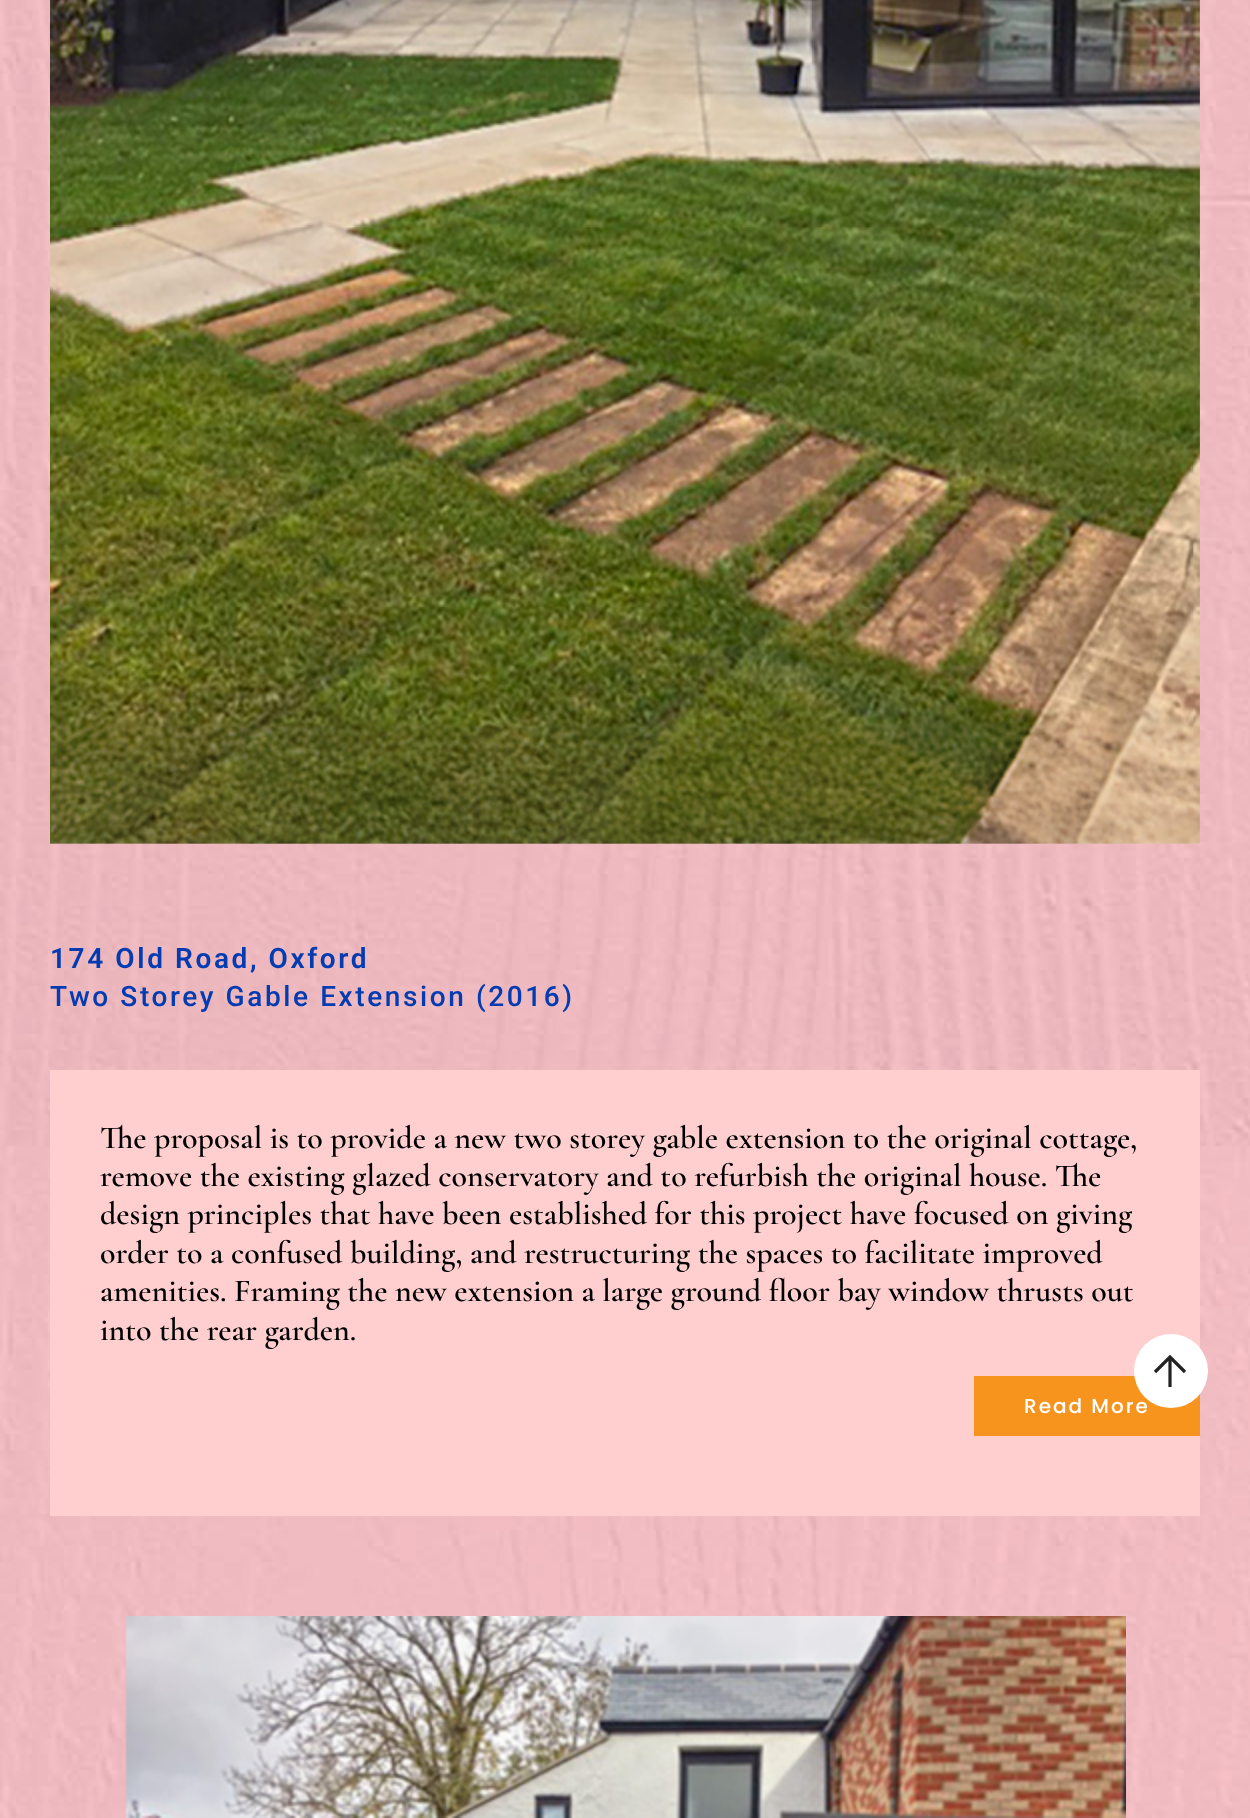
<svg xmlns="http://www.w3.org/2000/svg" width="1250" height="1818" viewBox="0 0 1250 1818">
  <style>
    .t1 { font: 600 28px Roboto; letter-spacing: 2.6px; fill: #023bb2; }
    .t2 { font: 500 28px Roboto; letter-spacing: 2.6px; fill: #023bb2; }
    .t3 { font: 600 32px Cormorant Garamond; fill: #000; }
    .t4 { font: 500 20px Poppins; letter-spacing: 2px; fill: #fff; }
  </style>
  <rect width="100%" height="100%" fill="#fff"/>
  <image x="0" y="0" width="1250" height="1818" href="images/1.png"/>
  <image x="50" y="0" width="1150" height="844" href="images/2.png"/>
  <text x="50" y="968" class="t1">174 Old Road, Oxford</text>
  <text x="50" y="1006" class="t2">Two Storey Gable Extension (2016)</text>
  <rect x="50" y="1070" width="1150" height="446" fill="#ffcfcf"/>
  <text x="100" y="1148" class="t3">The proposal is to provide a new two storey gable extension to the original cottage,</text>
  <text x="100" y="1186" class="t3">remove the existing glazed conservatory and to refurbish the original house. The</text>
  <text x="100" y="1224" class="t3">design principles that have been established for this project have focused on giving</text>
  <text x="100" y="1263" class="t3">order to a confused building, and restructuring the spaces to facilitate improved</text>
  <text x="100" y="1301" class="t3">amenities. Framing the new extension a large ground floor bay window thrusts out</text>
  <text x="100" y="1340" class="t3">into the rear garden.</text>
  <rect x="974" y="1376" width="226" height="60" fill="#f7941e"/>
  <text x="1024" y="1413" class="t4">Read More</text>
  <image x="125" y="1616" width="1001" height="202" href="images/3.png"/>
  <circle cx="1171" cy="1371" r="37" fill="#fff"/>
  <path d="M1170 1387V1357M1155 1372L1170 1357L1185 1372" fill="none" stroke="#222" stroke-width="3.2"/>
</svg>
